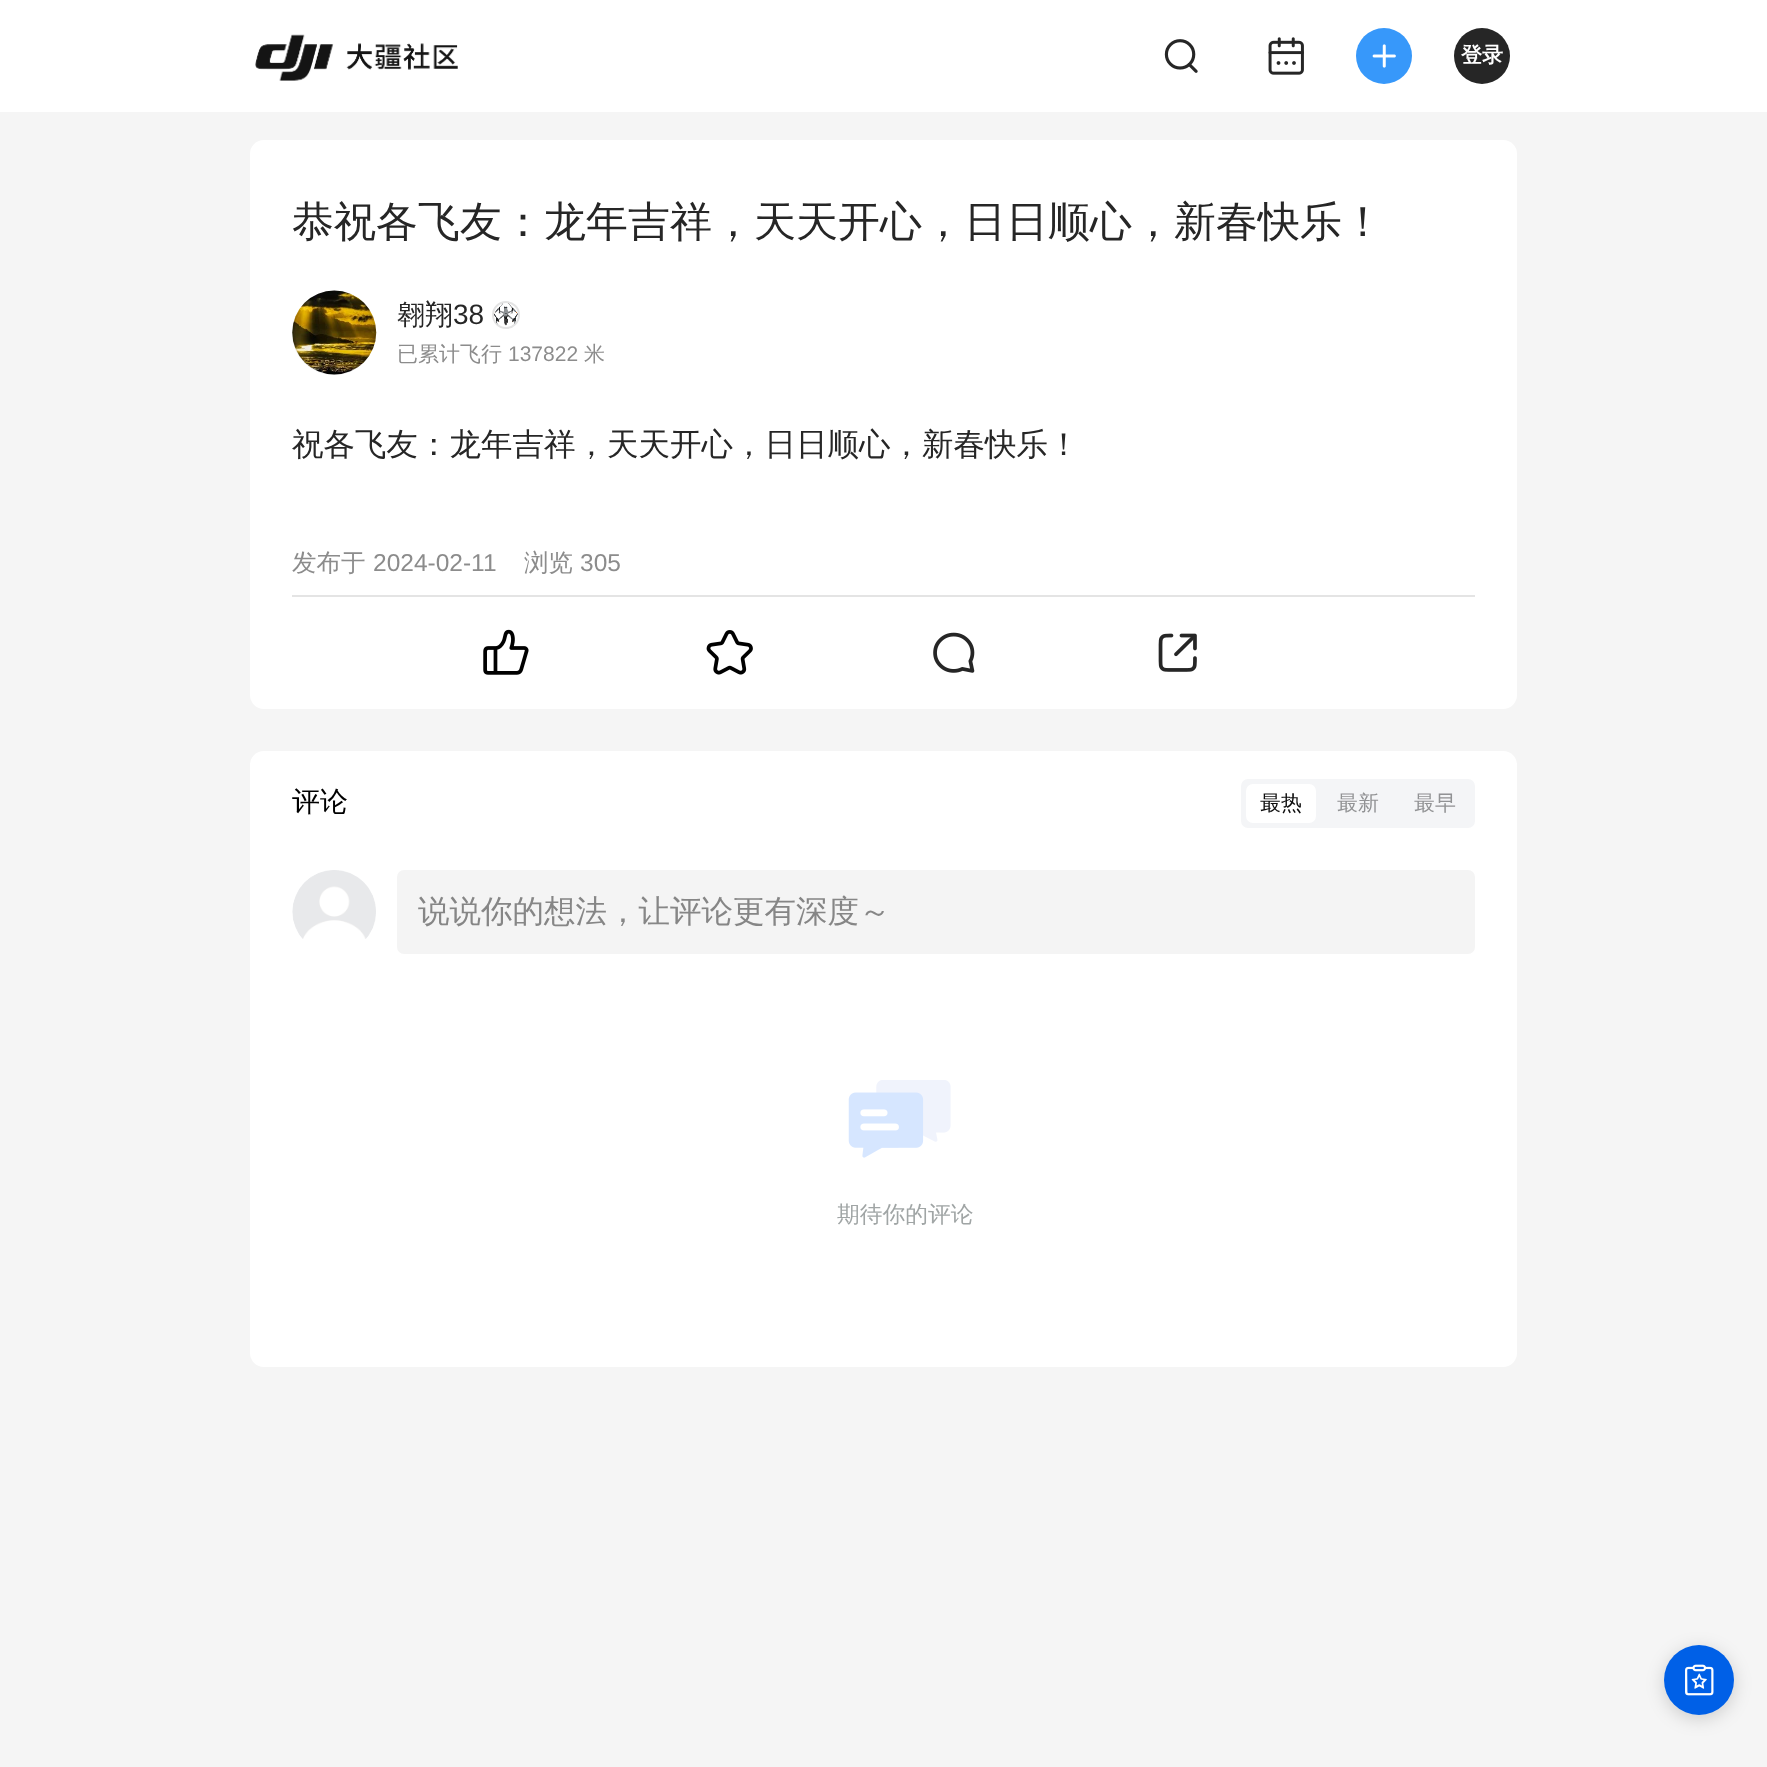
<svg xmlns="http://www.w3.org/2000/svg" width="1767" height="1767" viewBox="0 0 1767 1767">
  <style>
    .t1 { font: bold 21px WenQuanYi Zen Hei; fill: #fff; }
    .t2 { font: 500 42px WenQuanYi Zen Hei; fill: #262626; }
    .t3 { font: 500 28px WenQuanYi Zen Hei; fill: #262626; }
    .t4 { font: 28px Liberation Sans; fill: #262626; }
    .t5 { font: 500 21px WenQuanYi Zen Hei; fill: #8c8c8c; }
    .t6 { font: 21px Liberation Sans; fill: #8c8c8c; }
    .t7 { font: 500 31.5px WenQuanYi Zen Hei; fill: #262626; }
    .t8 { font: 500 24.5px WenQuanYi Zen Hei; fill: #8c8c8c; }
    .t9 { font: 24.5px Liberation Sans; fill: #8c8c8c; }
    .t10 { font: 500 28px WenQuanYi Zen Hei; fill: #000; }
    .t11 { font: 500 21px WenQuanYi Zen Hei; fill: #0c0c0c; }
    .t12 { font: 500 21px WenQuanYi Zen Hei; fill: #919294; }
    .t13 { font: 500 31.5px WenQuanYi Zen Hei; fill: #868686; }
    .t14 { font: 500 22.75px WenQuanYi Zen Hei; fill: #a0a5a5; }
  </style>
  <rect width="100%" height="100%" fill="#f5f5f5"/>
  <rect x="0" y="0" width="1767" height="112" fill="#fff"/>
  <image x="255" y="34" width="203" height="47" href="images/1.png"/>
  <image x="1164" y="39" width="34" height="34" href="images/2.png"/>
  <image x="1268" y="37" width="36" height="38" href="images/3.png"/>
  <circle cx="1384" cy="56" r="28" fill="#3798fa"/>
  <image x="1372" y="44" width="24" height="24" href="images/4.png"/>
  <circle cx="1482" cy="56" r="28" fill="#262626"/>
  <text x="1461" y="62" class="t1">登录</text>
  <rect x="250" y="140" width="1267" height="569" rx="14" fill="#fff"/>
  <text x="292" y="236" class="t2">恭祝各飞友：龙年吉祥，天天开心，日日顺心，新春快乐！</text>
  <image x="292" y="290" width="85" height="85" href="images/5.png"/>
  <circle cx="334" cy="333" r="41" fill="none" stroke="#00000014" stroke-width="2"/>
  <text x="397" y="324" class="t3">翱翔</text>
  <text x="453" y="324" class="t4">38</text>
  <circle cx="506" cy="315" r="13" fill="none" stroke="#e4e4e4" stroke-width="2"/>
  <image x="493" y="303" width="25" height="23" href="images/6.png"/>
  <text x="397" y="361" class="t5">已累计飞行</text>
  <text x="508" y="361" class="t6">137822</text>
  <text x="584" y="361" class="t5">米</text>
  <text x="292" y="455" class="t7">祝各飞友：龙年吉祥，天天开心，日日顺心，新春快乐！</text>
  <text x="292" y="571" class="t8">发布于</text>
  <text x="373" y="571" class="t9">2024-02-11</text>
  <text x="524" y="571" class="t8">浏览</text>
  <text x="580" y="571" class="t9">305</text>
  <rect x="292" y="595" width="1183" height="2" fill="#e4e4e4"/>
  <image x="483" y="629" width="46" height="46" href="images/7.png"/>
  <image x="706" y="630" width="47" height="45" href="images/8.png"/>
  <image x="933" y="632" width="42" height="41" href="images/9.png"/>
  <image x="1158" y="633" width="39" height="39" href="images/10.png"/>
  <rect x="250" y="751" width="1267" height="616" rx="14" fill="#fff"/>
  <text x="292" y="811" class="t10">评论</text>
  <rect x="1241" y="779" width="234" height="49" rx="7" fill="#f4f5f7"/>
  <rect x="1246" y="784" width="70" height="39" rx="7" fill="#fff"/>
  <text x="1260" y="810" class="t11">最热</text>
  <text x="1337" y="810" class="t12">最新</text>
  <text x="1414" y="810" class="t12">最早</text>
  <image x="292" y="870" width="84" height="69" href="images/11.png"/>
  <rect x="397" y="870" width="1078" height="84" rx="7" fill="#f4f4f4"/>
  <text x="418" y="922" class="t13">说说你的想法，让评论更有深度～</text>
  <image x="848" y="1080" width="103" height="78" href="images/12.png"/>
  <text x="837" y="1222" class="t14">期待你的评论</text>
  <rect x="1664" y="1649" width="70" height="70" rx="35" fill="#00000029" filter="blur(9px)"/>
  <circle cx="1699" cy="1680" r="35" fill="#0060e7"/>
  <image x="1685" y="1664" width="29" height="32" href="images/13.png"/>
</svg>
